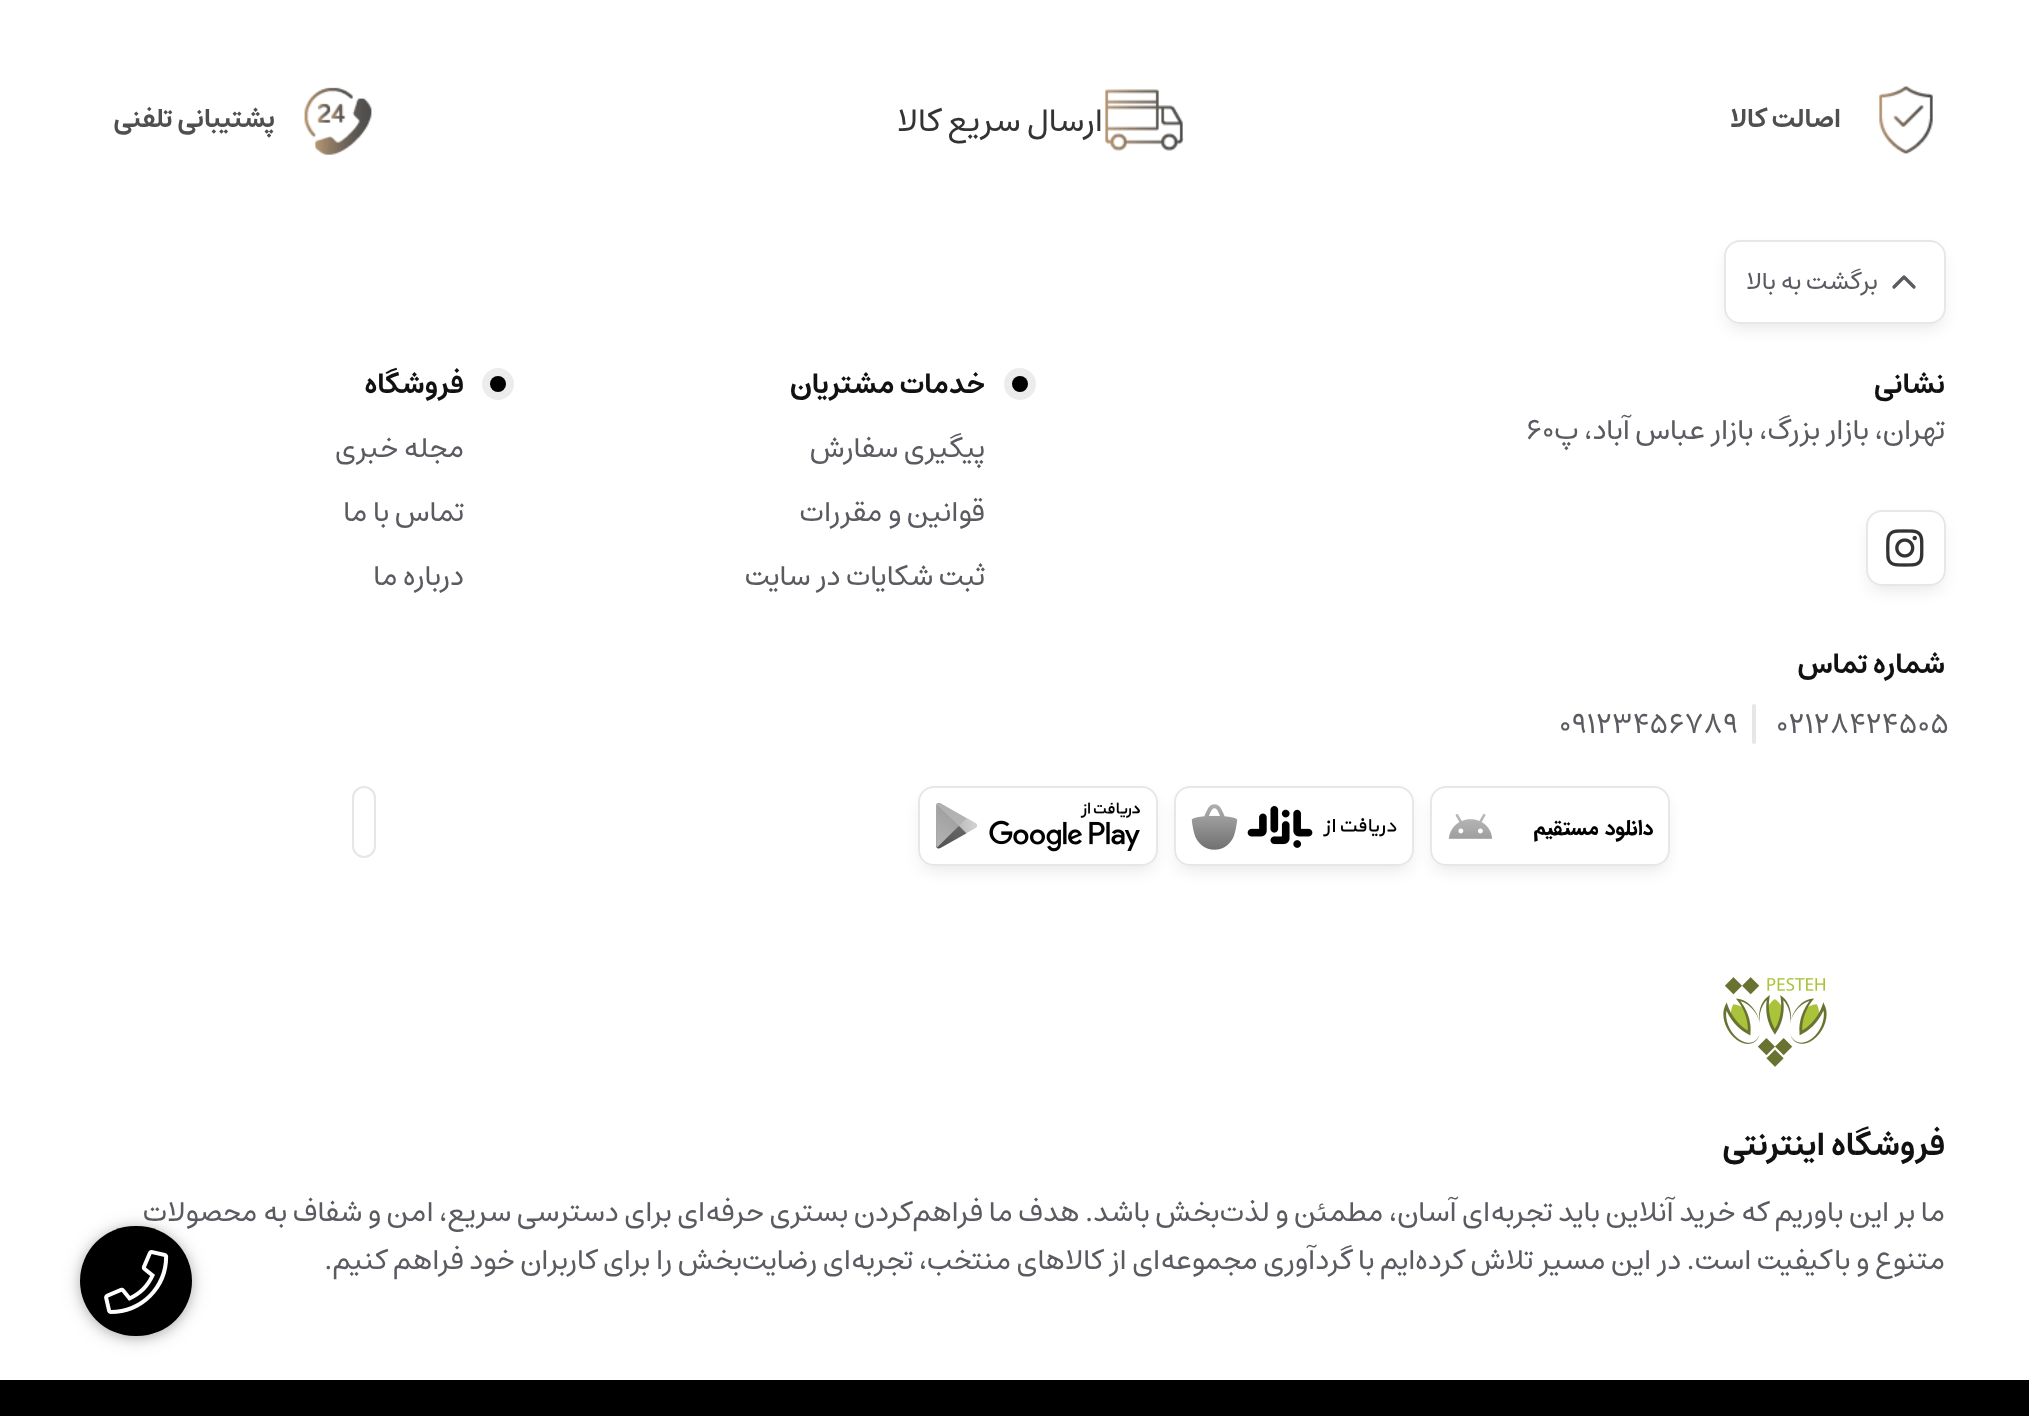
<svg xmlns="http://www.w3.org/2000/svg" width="2029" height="1416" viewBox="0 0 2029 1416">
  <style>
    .t1 { font: 600 26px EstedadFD; direction: rtl; fill: #4f4f4f; }
    .t2 { font: 32px EstedadFD; direction: rtl; fill: #333; }
    .t3 { font: 24px EstedadFD; direction: rtl; fill: #5a5b60; }
    .t4 { font: 600 28px EstedadFD; direction: rtl; fill: #111112; }
    .t5 { font: 28px EstedadFD; direction: rtl; fill: #5a5b60; }
    .t6 { font: 28px EstedadFD; fill: #5a5b60; }
    .t7 { font: 600 32px EstedadFD; direction: rtl; fill: #111112; }
  </style>
  <defs>
    <clipPath id="clip1"><path d="M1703 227H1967V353H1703ZM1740 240H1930C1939 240 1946 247 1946 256V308C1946 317 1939 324 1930 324H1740C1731 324 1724 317 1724 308V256C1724 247 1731 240 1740 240Z" clip-rule="evenodd"/></clipPath>
    <clipPath id="clip2"><path d="M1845 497H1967V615H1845ZM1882 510H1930C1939 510 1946 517 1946 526V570C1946 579 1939 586 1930 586H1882C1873 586 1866 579 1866 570V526C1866 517 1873 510 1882 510Z" clip-rule="evenodd"/></clipPath>
    <clipPath id="clip3"><path d="M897 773H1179V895H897ZM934 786H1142C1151 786 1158 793 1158 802V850C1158 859 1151 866 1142 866H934C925 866 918 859 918 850V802C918 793 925 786 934 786Z" clip-rule="evenodd"/></clipPath>
    <clipPath id="clip4"><path d="M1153 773H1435V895H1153ZM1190 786H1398C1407 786 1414 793 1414 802V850C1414 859 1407 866 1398 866H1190C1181 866 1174 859 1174 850V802C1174 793 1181 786 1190 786Z" clip-rule="evenodd"/></clipPath>
    <clipPath id="clip5"><path d="M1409 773H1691V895H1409ZM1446 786H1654C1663 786 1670 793 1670 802V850C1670 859 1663 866 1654 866H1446C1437 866 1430 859 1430 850V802C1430 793 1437 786 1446 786Z" clip-rule="evenodd"/></clipPath>
  </defs>
  <rect width="100%" height="100%" fill="#fff"/>
  <image x="1878" y="86" width="55" height="68" href="images/1.png"/>
  <text x="1841" y="127" class="t1">اصالت کالا</text>
  <image x="1105" y="89" width="79" height="62" href="images/2.png"/>
  <text x="1103" y="131" class="t2">ارسال سریع کالا</text>
  <image x="304" y="87" width="68" height="68" href="images/3.png"/>
  <text x="275" y="127" class="t1">پشتیبانی تلفنی</text>
  <g clip-path="url(#clip1)">
    <rect x="1728" y="252" width="214" height="76" rx="12" fill="#1018281a" filter="blur(8px)"/>
  </g>
  <rect x="1725" y="241" width="220" height="82" rx="15" fill="none" stroke="#e7e7e7" stroke-width="2"/>
  <path d="M1914 287L1904 277L1894 287" fill="none" stroke="#5a5b60" stroke-width="3.3" stroke-linecap="round" stroke-linejoin="round"/>
  <text x="1878" y="289" class="t3">برگشت به بالا</text>
  <text x="1945" y="393" class="t4">نشانی</text>
  <text x="1945" y="439" class="t5">تهران، بازار بزرگ، بازار عباس آباد، پ</text>
  <text x="1526" y="439" class="t6">60</text>
  <g clip-path="url(#clip2)">
    <rect x="1870" y="522" width="72" height="68" rx="12" fill="#1018281a" filter="blur(8px)"/>
  </g>
  <rect x="1867" y="511" width="78" height="74" rx="15" fill="none" stroke="#e7e7e7" stroke-width="2"/>
  <image x="1886" y="529" width="38" height="38" href="images/4.png"/>
  <text x="1945" y="673" class="t4">شماره تماس</text>
  <text x="1776" y="733" class="t6">02128424505</text>
  <rect x="1752" y="704" width="4" height="40" rx="2" fill="#e6e6e7"/>
  <text x="1559" y="733" class="t6">09123456789</text>
  <circle cx="1020" cy="384" r="16" fill="#ececec"/>
  <text x="985" y="393" class="t4">خدمات مشتریان</text>
  <circle cx="1020" cy="384" r="8" fill="#000"/>
  <text x="985" y="457" class="t5">پیگیری سفارش</text>
  <text x="985" y="521" class="t5">قوانین و مقررات</text>
  <text x="985" y="585" class="t5">ثبت شکایات در سایت</text>
  <circle cx="498" cy="384" r="16" fill="#ececec"/>
  <text x="464" y="393" class="t4">فروشگاه</text>
  <circle cx="498" cy="384" r="8" fill="#000"/>
  <text x="464" y="457" class="t5">مجله خبری</text>
  <text x="464" y="521" class="t5">تماس با ما</text>
  <text x="464" y="585" class="t5">درباره ما</text>
  <g clip-path="url(#clip3)">
    <rect x="922" y="798" width="232" height="72" rx="12" fill="#1717171a" filter="blur(8px)"/>
  </g>
  <image x="936" y="802" width="204" height="50" href="images/7.png"/>
  <rect x="919" y="787" width="238" height="78" rx="15" fill="none" stroke="#e7e7e7" stroke-width="2"/>
  <g clip-path="url(#clip4)">
    <rect x="1178" y="798" width="232" height="72" rx="12" fill="#1717171a" filter="blur(8px)"/>
  </g>
  <image x="1191" y="804" width="206" height="46" href="images/6.png"/>
  <rect x="1175" y="787" width="238" height="78" rx="15" fill="none" stroke="#e7e7e7" stroke-width="2"/>
  <g clip-path="url(#clip5)">
    <rect x="1434" y="798" width="232" height="72" rx="12" fill="#1717171a" filter="blur(8px)"/>
  </g>
  <image x="1448" y="813" width="205" height="29" href="images/5.png"/>
  <rect x="1431" y="787" width="238" height="78" rx="15" fill="none" stroke="#e7e7e7" stroke-width="2"/>
  <rect x="353" y="787" width="22" height="70" rx="11" fill="none" stroke="#e6e6e7" stroke-width="2"/>
  <image x="1723" y="977" width="104" height="90" href="images/8.png"/>
  <text x="1945" y="1155" class="t7">فروشگاه اینترنتی</text>
  <text x="1945" y="1221" class="t5">ما بر این باوریم که خرید آنلاین باید تجربه‌ای آسان، مطمئن و لذت‌بخش باشد. هدف ما فراهم‌کردن بستری حرفه‌ای برای دسترسی سریع، امن و شفاف به محصولات</text>
  <text x="1945" y="1269" class="t5">متنوع و باکیفیت است. در این مسیر تلاش کرده‌ایم با گردآوری مجموعه‌ای از کالاهای منتخب، تجربه‌ای رضایت‌بخش را برای کاربران خود فراهم کنیم.</text>
  <rect x="0" y="1380" width="2029" height="36" fill="#000"/>
  <rect x="80" y="1228" width="112" height="110" rx="55" fill="#00000026" filter="blur(10px)"/>
  <rect x="80" y="1228" width="112" height="110" rx="55" fill="#00000033" filter="blur(6px)"/>
  <rect x="80" y="1226" width="112" height="110" rx="55" fill="#000"/>
  <image x="104" y="1250" width="65" height="64" href="images/9.png"/>
</svg>
